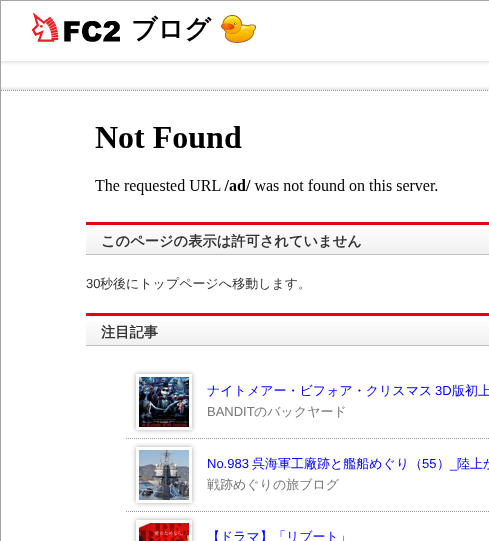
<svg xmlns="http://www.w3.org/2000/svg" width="489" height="541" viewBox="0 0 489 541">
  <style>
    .t1 { font: bold 26px WenQuanYi Zen Hei; fill: #000; }
    .t2 { font: bold 14.25px WenQuanYi Zen Hei; fill: #333; }
    .t3 { font: 13px Liberation Sans; fill: #333; }
    .t4 { font: 500 13px WenQuanYi Zen Hei; fill: #333; }
    .t5 { font: 500 13px WenQuanYi Zen Hei; fill: #00f; }
    .t6 { font: 13px Liberation Sans; fill: #00f; }
    .t7 { font: 13px Liberation Sans; fill: #777; }
    .t8 { font: 500 13px WenQuanYi Zen Hei; fill: #777; }
  </style>
  <defs>
    <linearGradient id="g1" gradientUnits="userSpaceOnUse" x1="86" y1="225" x2="86" y2="254"><stop offset="0" stop-color="#fff"/><stop offset="1" stop-color="#f0f0f0"/></linearGradient>
    <linearGradient id="g2" gradientUnits="userSpaceOnUse" x1="86" y1="316" x2="86" y2="345"><stop offset="0" stop-color="#fff"/><stop offset="1" stop-color="#f0f0f0"/></linearGradient>
    <clipPath id="clip1"><path d="M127 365H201V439H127ZM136 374H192V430H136Z" clip-rule="evenodd"/></clipPath>
    <clipPath id="clip2"><path d="M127 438H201V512H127ZM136 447H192V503H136Z" clip-rule="evenodd"/></clipPath>
    <clipPath id="clip3"><path d="M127 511H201V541H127ZM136 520H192V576H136Z" clip-rule="evenodd"/></clipPath>
  </defs>
  <rect width="100%" height="100%" fill="#fff"/>
  <rect x="0.5" y="0.5" width="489" height="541" fill="none" stroke="#a3a3a3"/>
  <image x="32" y="12" width="88" height="30" href="images/1.png"/>
  <image x="221" y="15" width="35" height="28" href="images/2.png"/>
  <text x="131" y="38" class="t1">ブログ</text>
  <image x="1" y="61" width="488" height="30" href="images/3.png"/>
  <image x="95" y="126" width="343" height="69" href="images/4.png"/>
  <rect x="86" y="230" width="403" height="24" fill="url(#g1)"/>
  <rect x="86" y="222" width="403" height="3" fill="#e80011"/>
  <rect x="86" y="254" width="403" height="1" fill="#bfbfbf"/>
  <text x="101" y="246" class="t2">このページの表示は許可されていません</text>
  <text x="86" y="288" class="t3">30</text>
  <text x="100" y="288" class="t4">秒後にトップページへ移動します。</text>
  <rect x="86" y="321" width="403" height="24" fill="url(#g2)"/>
  <rect x="86" y="313" width="403" height="3" fill="#e80011"/>
  <rect x="86" y="345" width="403" height="1" fill="#bfbfbf"/>
  <text x="101" y="337" class="t2">注目記事</text>
  <path d="M126 438.5H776" fill="none" stroke="#999" stroke-dasharray="1 1"/>
  <g clip-path="url(#clip1)">
    <rect x="136" y="374" width="56" height="56" fill="#aaa" filter="blur(2.5px)"/>
  </g>
  <image x="139" y="377" width="50" height="50" href="images/5.png"/>
  <text x="207" y="395" class="t5">ナイトメアー・ビフォア・クリスマス</text>
  <text x="435" y="395" class="t6">3D</text>
  <text x="452" y="395" class="t5">版初上</text>
  <text x="207" y="416" class="t7">BANDIT</text>
  <text x="254" y="416" class="t8">のバックヤード</text>
  <path d="M126 511.5H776" fill="none" stroke="#999" stroke-dasharray="1 1"/>
  <g clip-path="url(#clip2)">
    <rect x="136" y="447" width="56" height="56" fill="#aaa" filter="blur(2.5px)"/>
  </g>
  <image x="139" y="450" width="50" height="50" href="images/6.png"/>
  <text x="207" y="468" class="t6">No.983</text>
  <text x="252" y="468" class="t5">呉海軍工廠跡と艦船めぐり（</text>
  <text x="422" y="468" class="t6">55</text>
  <text x="437" y="468" class="t5">）</text>
  <text x="450" y="468" class="t6">_</text>
  <text x="457" y="468" class="t5">陸上か</text>
  <text x="207" y="489" class="t8">戦跡めぐりの旅ブログ</text>
  <g clip-path="url(#clip3)">
    <rect x="136" y="520" width="56" height="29" fill="#aaa" filter="blur(2.5px)"/>
  </g>
  <image x="139" y="523" width="50" height="18" href="images/7.png"/>
  <text x="207" y="541" class="t5">【ドラマ】「リブート」</text>
</svg>
